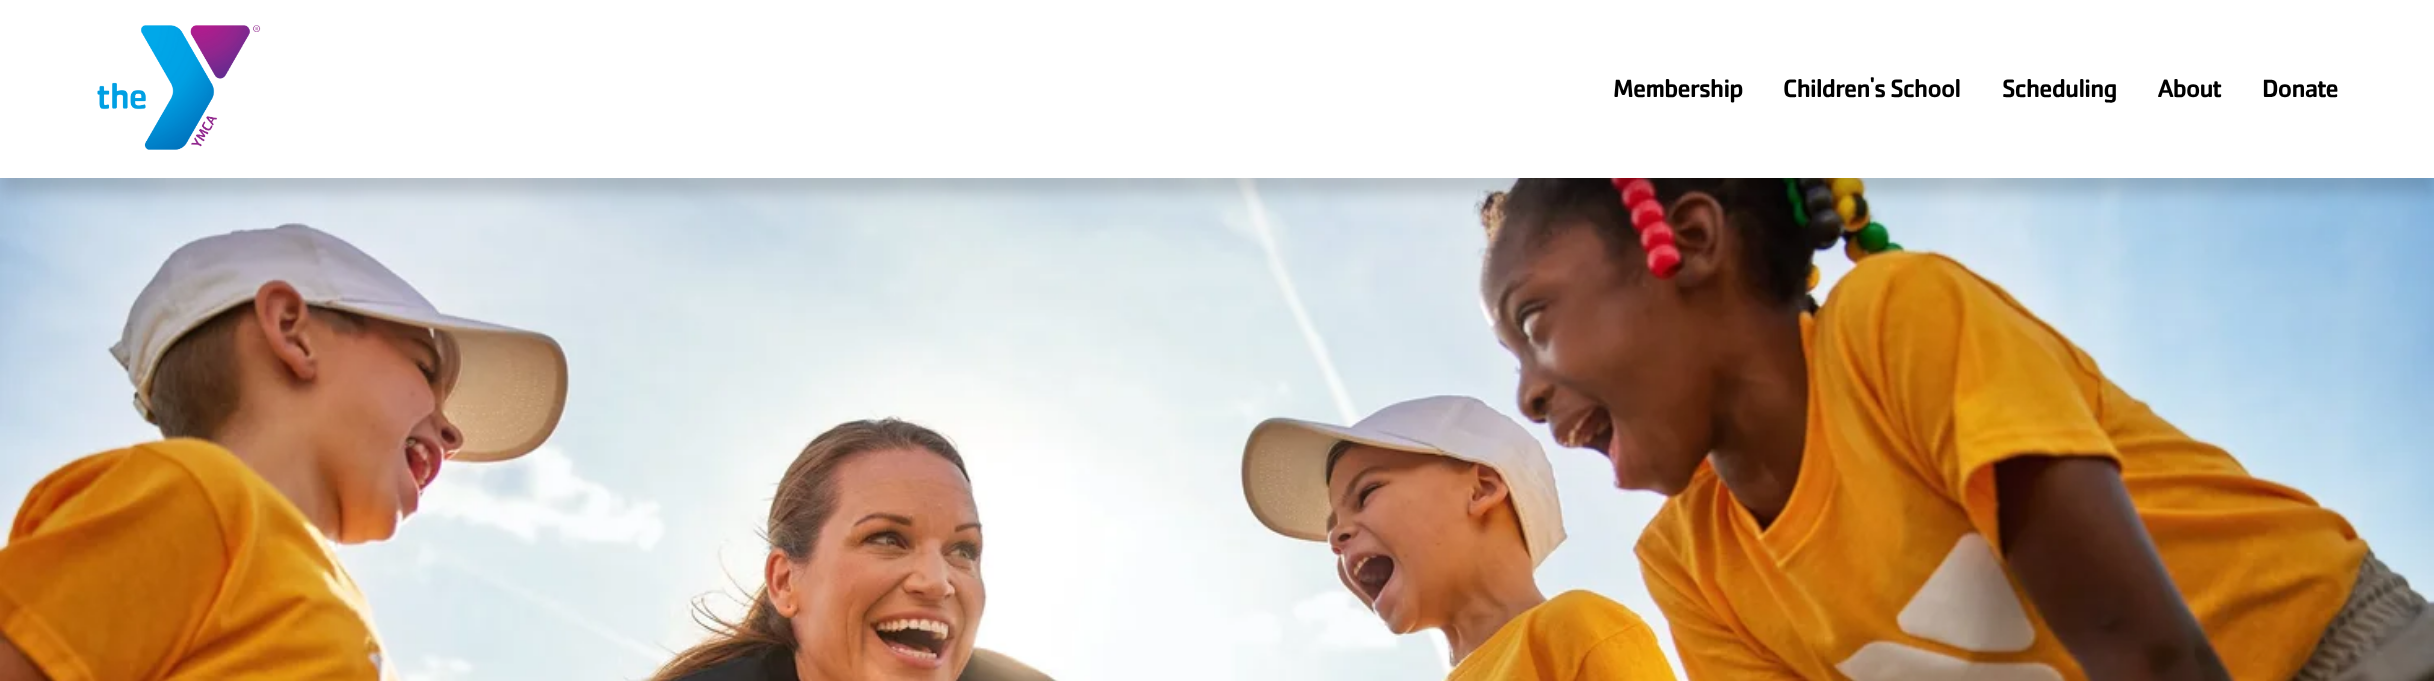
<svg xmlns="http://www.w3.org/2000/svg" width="2434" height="681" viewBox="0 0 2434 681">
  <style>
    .t1 { font: 500 26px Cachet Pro; letter-spacing: -0.75px; fill: #000; }
  </style>
  <defs>
    <clipPath id="clip1"><path d="M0 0H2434V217H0ZM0 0H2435V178H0Z" clip-rule="evenodd"/></clipPath>
  </defs>
  <rect width="100%" height="100%" fill="#fff"/>
  <image x="0" y="178" width="2434" height="503" href="images/2.png"/>
  <g clip-path="url(#clip1)">
    <rect x="0" y="15" width="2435" height="178" fill="#00000026" filter="blur(7.5px)"/>
  </g>
  <image x="97" y="25" width="164" height="125" href="images/1.png"/>
  <text x="1613" y="97" class="t1">Membership</text>
  <text x="1783" y="97" class="t1">Children's School</text>
  <text x="2002" y="97" class="t1">Scheduling</text>
  <text x="2158" y="97" class="t1">About</text>
  <text x="2262" y="97" class="t1">Donate</text>
</svg>
